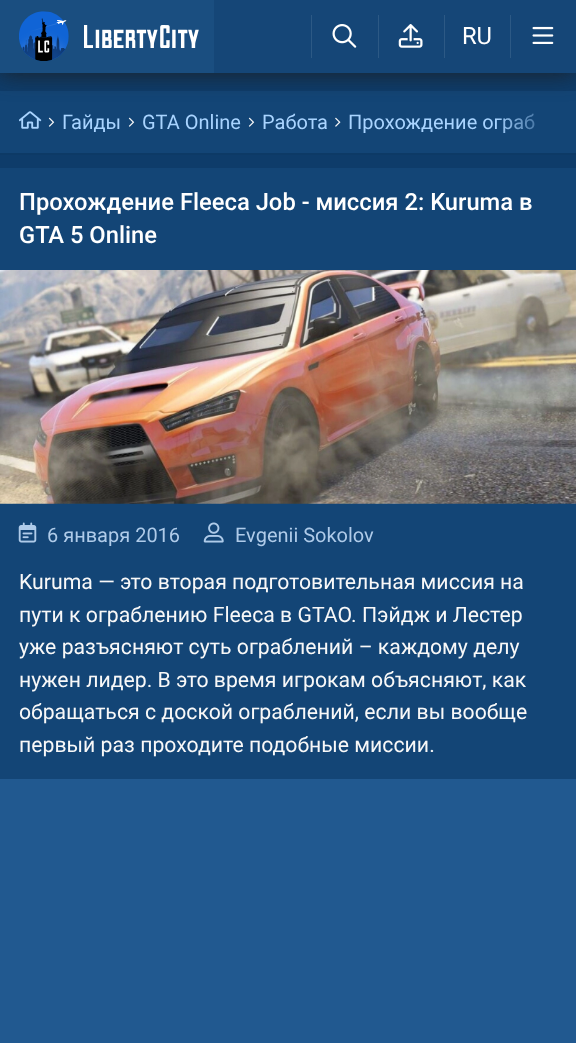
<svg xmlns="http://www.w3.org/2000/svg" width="576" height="1043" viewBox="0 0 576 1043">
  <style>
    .t1 { font: 23.75px Roboto; fill: #fff; }
    .t2 { font: 20px Roboto; fill: #a9d4ff; }
    .t3 { font: 500 23.75px Roboto; fill: #fff; }
    .t4 { font: 20px Roboto; fill: #afcbe9; }
    .t5 { font: 21.25px Roboto; fill: #f8f8f8; }
  </style>
  <defs>
    <linearGradient id="g1" gradientUnits="userSpaceOnUse" x1="558" y1="122" x2="433" y2="122"><stop offset="0" stop-color="#134576"/><stop offset="0.5" stop-color="#134576" stop-opacity="0"/></linearGradient>
  </defs>
  <rect width="100%" height="100%" fill="#0e3c6a"/>
  <path d="M-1 91V155H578V91ZM0 91V152H576V91Z" fill="#0d3a66" fill-rule="evenodd"/>
  <rect x="0" y="91" width="576" height="62" fill="#134576"/>
  <image x="19" y="111" width="23" height="18" href="images/6.png"/>
  <rect x="0" y="0" width="576" height="73" fill="#1c1c1ced" filter="blur(12.5px)"/>
  <rect x="214" y="0" width="362" height="73" fill="#154677"/>
  <rect x="0" y="0" width="214" height="73" fill="#1a4e80"/>
  <image x="19" y="11" width="50" height="50" href="images/1.png"/>
  <image x="84" y="25" width="115" height="23" href="images/2.png"/>
  <rect x="311" y="15" width="1" height="43" fill="#2c5985"/>
  <image x="332" y="24" width="25" height="24" href="images/3.png"/>
  <rect x="378" y="15" width="1" height="43" fill="#2c5985"/>
  <image x="398" y="24" width="25" height="24" href="images/4.png"/>
  <rect x="444" y="15" width="1" height="43" fill="#2c5985"/>
  <text x="462" y="44" class="t1">RU</text>
  <rect x="510" y="15" width="1" height="43" fill="#2c5985"/>
  <image x="532" y="26" width="22" height="18" href="images/5.png"/>
  <image x="248" y="117" width="7" height="10" href="images/7.png"/>
  <text x="262" y="129" class="t2">Работа</text>
  <image x="335" y="117" width="6" height="10" href="images/8.png"/>
  <text x="348" y="129" class="t2">Прохождение ограб</text>
  <image x="48" y="117" width="7" height="10" href="images/7.png"/>
  <text x="62" y="129" class="t2">Гайды</text>
  <image x="128" y="117" width="7" height="10" href="images/7.png"/>
  <text x="142" y="129" class="t2">GTA Online</text>
  <rect x="497" y="113" width="38" height="20" fill="url(#g1)"/>
  <rect x="0" y="168" width="576" height="611" fill="#134576"/>
  <text x="19" y="210" class="t3">Прохождение Fleeca Job - миссия 2: Kuruma в</text>
  <text x="19" y="243" class="t3">GTA 5 Online</text>
  <image x="0" y="270" width="576" height="234" href="images/9.png"/>
  <image x="18" y="522" width="19" height="21" href="images/10.png"/>
  <text x="47" y="542" class="t4">6 января 2016</text>
  <image x="203" y="522" width="21" height="21" href="images/11.png"/>
  <text x="235" y="542" class="t4">Evgenii Sokolov</text>
  <text x="19" y="589" class="t5">Kuruma — это вторая подготовительная миссия на</text>
  <text x="19" y="622" class="t5">пути к ограблению Fleeca в GTAO. Пэйдж и Лестер</text>
  <text x="19" y="654" class="t5">уже разъясняют суть ограблений – каждому делу</text>
  <text x="19" y="687" class="t5">нужен лидер. В это время игрокам объясняют, как</text>
  <text x="19" y="719" class="t5">обращаться с доской ограблений, если вы вообще</text>
  <text x="19" y="752" class="t5">первый раз проходите подобные миссии.</text>
  <rect x="0" y="779" width="576" height="264" fill="#215990"/>
</svg>
